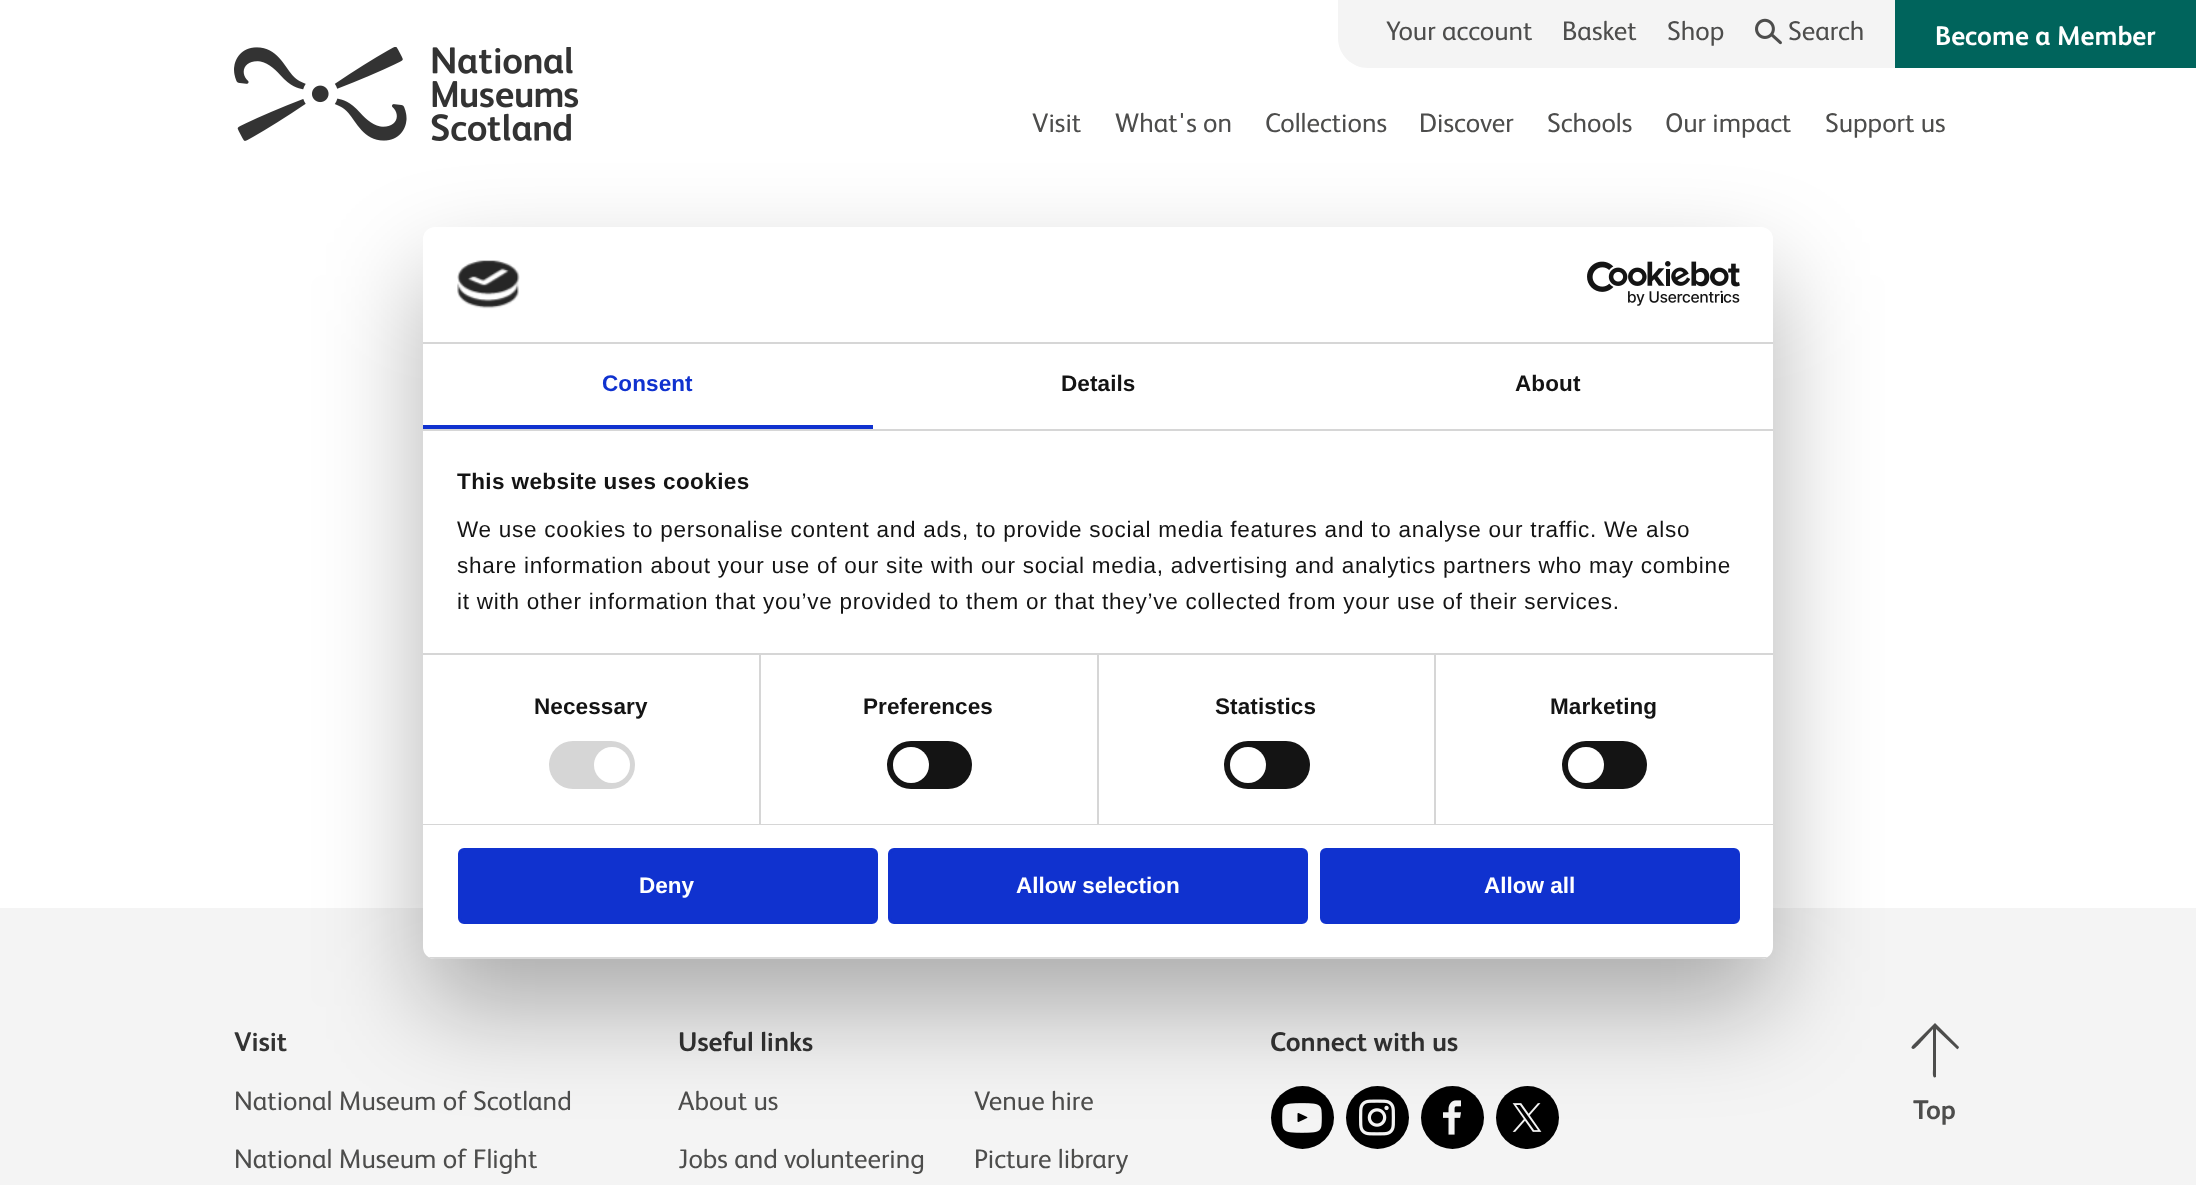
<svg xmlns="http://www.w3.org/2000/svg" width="2196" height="1185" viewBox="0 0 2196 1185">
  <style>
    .t1 { font: 27px 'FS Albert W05'; fill: #4d4d4c; }
    .t2 { font: bold 27px 'FS Albert W05'; fill: #fff; }
    .t3 { font: bold 27px 'FS Albert W05'; fill: #333; }
    .t4 { font: bold 27px 'FS Albert W05'; fill: #4d4d4c; }
    .t5 { font: bold 22.5px Liberation Sans; letter-spacing: 0.1px; fill: #1032cf; }
    .t6 { font: bold 22.5px Liberation Sans; letter-spacing: 0.1px; fill: #141414; }
    .t7 { font: bold 22.5px Liberation Sans; letter-spacing: 0.4px; fill: #141414; }
    .t8 { font: 22.5px Liberation Sans; letter-spacing: 0.75px; fill: #141414; }
    .t9 { font: bold 22.5px Liberation Sans; fill: #fff; }
  </style>
  <defs>
    <clipPath id="clip1"><rect x="423" y="227" width="1350" height="732" rx="12"/></clipPath>
  </defs>
  <rect width="100%" height="100%" fill="#fff"/>
  <path d="M1338 0H2196V68H1368C1351.5 68 1338 54.5 1338 38Z" fill="#f4f4f4"/>
  <text x="1386" y="40" class="t1">Your account</text>
  <text x="1562" y="40" class="t1">Basket</text>
  <text x="1667" y="40" class="t1">Shop</text>
  <image x="1755" y="18" width="27" height="27" href="images/1.png"/>
  <text x="1788" y="40" class="t1">Search</text>
  <rect x="1895" y="0" width="301" height="68" fill="#00645c"/>
  <text x="1935" y="45" class="t2">Become a Member</text>
  <image x="234" y="47" width="345" height="94" href="images/2.png"/>
  <text x="1032" y="132" class="t1">Visit</text>
  <text x="1115" y="132" class="t1">What's on</text>
  <text x="1265" y="132" class="t1">Collections</text>
  <text x="1419" y="132" class="t1">Discover</text>
  <text x="1547" y="132" class="t1">Schools</text>
  <text x="1665" y="132" class="t1">Our impact</text>
  <text x="1825" y="132" class="t1">Support us</text>
  <rect x="0" y="908" width="2196" height="277" fill="#f4f4f4"/>
  <text x="234" y="1051" class="t3">Visit</text>
  <text x="234" y="1110" class="t1">National Museum of Scotland</text>
  <text x="234" y="1168" class="t1">National Museum of Flight</text>
  <text x="678" y="1051" class="t3">Useful links</text>
  <text x="678" y="1110" class="t1">About us</text>
  <text x="974" y="1110" class="t1">Venue hire</text>
  <text x="678" y="1168" class="t1">Jobs and volunteering</text>
  <text x="974" y="1168" class="t1">Picture library</text>
  <text x="1270" y="1051" class="t3">Connect with us</text>
  <circle cx="1302.5" cy="1117.5" r="31.5" fill="#000"/>
  <image x="1282" y="1103" width="40" height="30" href="images/3.png"/>
  <circle cx="1377.5" cy="1117.5" r="31.5" fill="#000"/>
  <image x="1359" y="1099" width="36" height="37" href="images/4.png"/>
  <circle cx="1452.5" cy="1117.5" r="31.5" fill="#000"/>
  <image x="1443" y="1100" width="18" height="35" href="images/5.png"/>
  <circle cx="1527.5" cy="1117.5" r="31.5" fill="#000"/>
  <image x="1512" y="1103" width="30" height="29" href="images/6.png"/>
  <path d="M1935 1023L1959 1047C1959 1048 1957 1050 1957 1049L1936 1029V1077C1932 1079 1933 1073 1933 1068V1029L1922 1041C1921 1042 1914 1050 1913 1049C1910 1048 1912 1046 1914 1044Z" fill="#4d4d4c"/>
  <text x="1913" y="1119" class="t4">Top</text>
  <rect x="423" y="275" width="1350" height="732" rx="12" fill="#0000004d" filter="blur(51px)"/>
  <rect x="423" y="227" width="1350" height="732" rx="12" fill="#fff"/>
  <rect x="423" y="342" width="1350" height="2" fill="#d6d6d6"/>
  <image x="457" y="260" width="63" height="49" href="images/7.png"/>
  <image x="1587" y="261" width="153" height="45" href="images/8.png"/>
  <rect x="423" y="429" width="1350" height="2" fill="#d6d6d6"/>
  <rect x="423" y="425" width="450" height="4" fill="#1032cf"/>
  <text x="602" y="391" class="t5">Consent</text>
  <text x="1061" y="391" class="t6">Details</text>
  <text x="1515" y="391" class="t6">About</text>
  <rect x="759" y="654" width="2" height="170" fill="#d6d6d6"/>
  <rect x="1097" y="654" width="2" height="170" fill="#d6d6d6"/>
  <rect x="1434" y="654" width="2" height="170" fill="#d6d6d6"/>
  <rect x="423" y="653" width="1350" height="2" fill="#d6d6d6"/>
  <text x="457" y="489" class="t7">This website uses cookies</text>
  <text x="457" y="537" class="t8">We use cookies to personalise content and ads, to provide social media features and to analyse our traffic. We also</text>
  <text x="457" y="573" class="t8">share information about your use of our site with our social media, advertising and analytics partners who may combine</text>
  <text x="457" y="609" class="t8">it with other information that you’ve provided to them or that they’ve collected from your use of their services.</text>
  <rect x="423" y="824" width="1350" height="1" fill="#d6d6d6"/>
  <text x="534" y="714" class="t6">Necessary</text>
  <rect x="549" y="741" width="86" height="48" rx="24" fill="#d6d6d6"/>
  <circle cx="612" cy="765" r="18" fill="#fff"/>
  <text x="863" y="714" class="t6">Preferences</text>
  <rect x="887" y="741" width="85" height="48" rx="24" fill="#141414"/>
  <circle cx="911" cy="765" r="18" fill="#fff"/>
  <text x="1215" y="714" class="t6">Statistics</text>
  <rect x="1224" y="741" width="86" height="48" rx="24" fill="#141414"/>
  <circle cx="1248" cy="765" r="18" fill="#fff"/>
  <text x="1550" y="714" class="t6">Marketing</text>
  <rect x="1562" y="741" width="85" height="48" rx="24" fill="#141414"/>
  <circle cx="1586" cy="765" r="18" fill="#fff"/>
  <g clip-path="url(#clip1)">
    <rect x="423" y="957" width="1350" height="2" fill="#d6d6d6"/>
  </g>
  <rect x="459.5" y="849.5" width="417" height="73" rx="4.5" fill="#1032cf" stroke="#1032cf" stroke-width="3"/>
  <text x="639" y="893" class="t9">Deny</text>
  <rect x="889.5" y="849.5" width="417" height="73" rx="4.5" fill="#1032cf" stroke="#1032cf" stroke-width="3"/>
  <text x="1016" y="893" class="t9">Allow selection</text>
  <rect x="1321.5" y="849.5" width="417" height="73" rx="4.5" fill="#1032cf" stroke="#1032cf" stroke-width="3"/>
  <text x="1484" y="893" class="t9">Allow all</text>
</svg>
